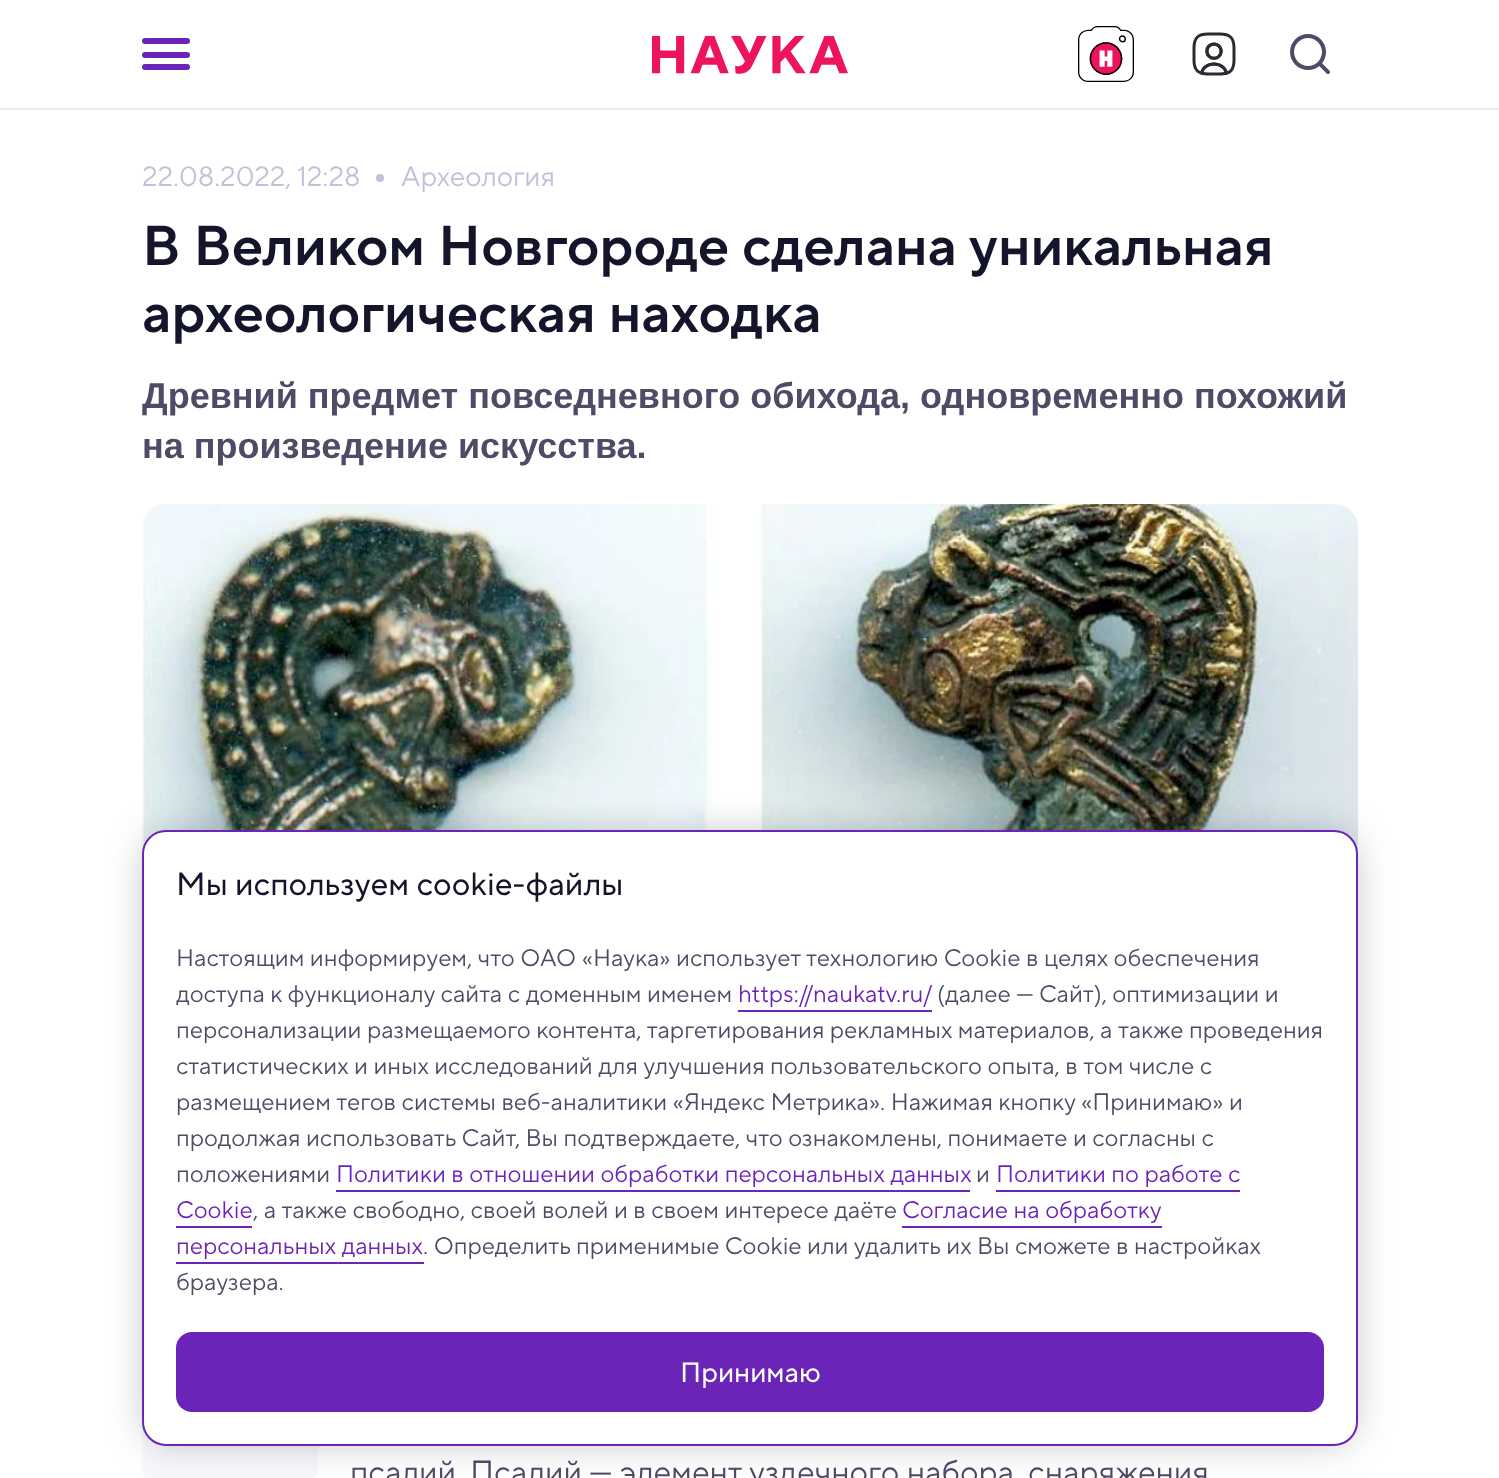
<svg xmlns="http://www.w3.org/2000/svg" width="1499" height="1478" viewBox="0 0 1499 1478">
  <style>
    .t1 { font: 28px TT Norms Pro; fill: #bec2da; }
    .t2 { font: 600 56px TT Norms Pro; fill: #14142a; }
    .t3 { font: bold 36px Liberation Sans; fill: #4e4b66; }
    .t4 { font: 32px TT Norms Pro; fill: #4e4b66; }
    .t5 { font: 32px 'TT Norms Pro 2'; fill: #14142a; }
    .t6 { font: 24px TT Norms Pro; fill: #4e4b66; }
    .t7 { font: 24px TT Norms Pro; fill: #6b24b8; }
    .t8 { font: 28px 'TT Norms Pro 2'; fill: #fff; }
  </style>
  <rect width="100%" height="100%" fill="#fff"/>
  <rect x="0" y="108" width="1499" height="2" fill="#e6e9ef"/>
  <rect x="142" y="38" width="48" height="6" rx="3" fill="#6b24b8"/>
  <rect x="142" y="52" width="48" height="6" rx="3" fill="#6b24b8"/>
  <rect x="142" y="64" width="48" height="6" rx="3" fill="#6b24b8"/>
  <image x="652" y="36" width="196" height="38" href="images/1.png"/>
  <image x="1078" y="26" width="56" height="56" href="images/2.png"/>
  <image x="1192" y="32" width="44" height="44" href="images/3.png"/>
  <image x="1290" y="34" width="40" height="40" href="images/4.png"/>
  <text x="142" y="186" class="t1">22.08.2022, 12:28</text>
  <circle cx="380" cy="178" r="4" fill="#bec2da"/>
  <text x="401" y="186" class="t1">Археология</text>
  <text x="142" y="265" class="t2">В Великом Новгороде сделана уникальная</text>
  <text x="142" y="332" class="t2">археологическая находка</text>
  <text x="142" y="408" class="t3">Древний предмет повседневного обихода, одновременно похожий</text>
  <text x="142" y="458" class="t3">на произведение искусства.</text>
  <image x="142" y="504" width="1216" height="350" href="images/5.png"/>
  <rect x="142" y="1364" width="176" height="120" rx="16" fill="#f7f7fc"/>
  <text x="350" y="1483" class="t4">псалий</text>
  <text x="470" y="1483" class="t4">Псалий — элемент уздечного набора, снаряжения</text>
  <rect x="150" y="838" width="1200" height="600" rx="16" fill="#0000004d" filter="blur(20px)"/>
  <rect x="143" y="831" width="1214" height="614" rx="23" fill="#fff" stroke="#6b24b8" stroke-width="2"/>
  <text x="176" y="895" class="t5">Мы используем сookie-файлы</text>
  <text x="176" y="966" class="t6">Настоящим информируем, что ОАО «Наука» использует технологию Cookie в целях обеспечения</text>
  <text x="176" y="1002" class="t6">доступа к функционалу сайта с доменным именем</text>
  <text x="738" y="1002" class="t7">https://naukatv.ru/</text>
  <rect x="738" y="1010" width="194" height="2" fill="#6b24b8"/>
  <text x="937" y="1002" class="t6">(далее — Сайт), оптимизации и</text>
  <text x="176" y="1038" class="t6">персонализации размещаемого контента, таргетирования рекламных материалов, а также проведения</text>
  <text x="176" y="1074" class="t6">статистических и иных исследований для улучшения пользовательского опыта, в том числе с</text>
  <text x="176" y="1110" class="t6">размещением тегов системы веб-аналитики «Яндекс Метрика». Нажимая кнопку «Принимаю» и</text>
  <text x="176" y="1146" class="t6">продолжая использовать Сайт, Вы подтверждаете, что ознакомлены, понимаете и согласны с</text>
  <text x="176" y="1182" class="t6">положениями</text>
  <text x="336" y="1182" class="t7">Политики в отношении обработки персональных данных</text>
  <rect x="336" y="1190" width="634" height="2" fill="#6b24b8"/>
  <text x="976" y="1182" class="t6">и</text>
  <text x="996" y="1182" class="t7">Политики по работе с</text>
  <rect x="996" y="1190" width="244" height="2" fill="#6b24b8"/>
  <text x="176" y="1218" class="t7">Cookie</text>
  <rect x="176" y="1226" width="76" height="2" fill="#6b24b8"/>
  <text x="253" y="1218" class="t6">, а также свободно, своей волей и в своем интересе даёте</text>
  <text x="902" y="1218" class="t7">Согласие на обработку</text>
  <rect x="902" y="1226" width="260" height="2" fill="#6b24b8"/>
  <text x="176" y="1254" class="t7">персональных данных</text>
  <rect x="176" y="1262" width="248" height="2" fill="#6b24b8"/>
  <text x="423" y="1254" class="t6">. Определить применимые Cookie или удалить их Вы сможете в настройках</text>
  <text x="176" y="1290" class="t6">браузера.</text>
  <rect x="176" y="1332" width="1148" height="80" rx="16" fill="#6b24b8"/>
  <text x="680" y="1382" class="t8">Принимаю</text>
</svg>
